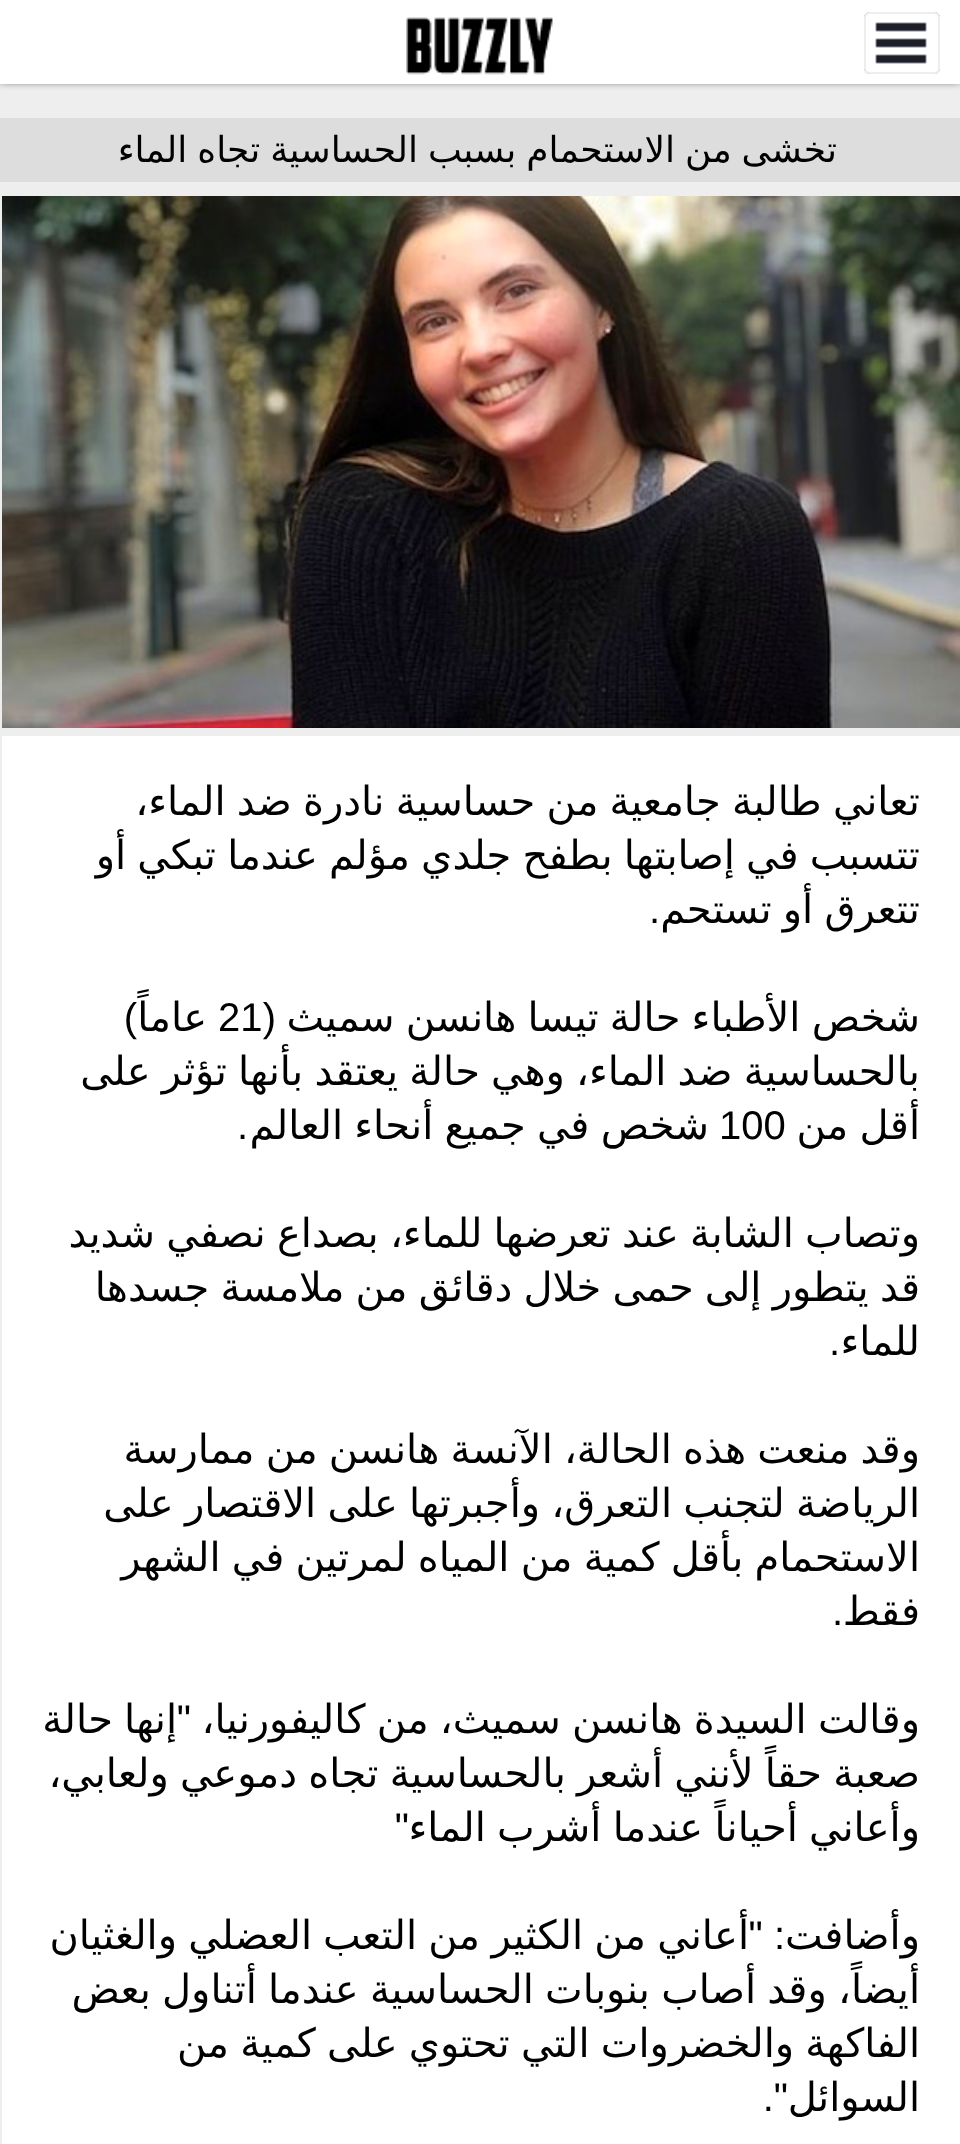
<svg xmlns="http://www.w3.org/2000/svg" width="960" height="2144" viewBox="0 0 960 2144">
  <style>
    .t1 { font: 36px DejaVu Sans; direction: rtl; fill: #000; }
    .t2 { font: 40px DejaVu Sans; direction: rtl; fill: #000; }
    .t3 { font: 40px Liberation Sans; direction: rtl; fill: #000; }
    .t4 { font: 40px Liberation Sans; fill: #000; }
  </style>
  <rect width="100%" height="100%" fill="#eee"/>
  <rect x="0" y="-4" width="960" height="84" fill="#000" filter="blur(5px)"/>
  <rect x="0" y="0" width="960" height="84" fill="#fff"/>
  <rect x="864" y="12" width="76" height="62" rx="6" fill="#1d1e29"/>
  <image x="864" y="12" width="76" height="62" href="images/1.png"/>
  <rect x="865" y="13" width="74" height="60" rx="5" fill="none" stroke="#eee" stroke-width="2"/>
  <image x="406" y="17" width="147" height="58" href="images/2.png"/>
  <rect x="0" y="118" width="960" height="64" fill="#ddd"/>
  <text x="837" y="162" word-spacing="-1.5" class="t1">تخشى من الاستحمام بسبب الحساسية تجاه الماء</text>
  <image x="2" y="196" width="958" height="532" href="images/3.png"/>
  <rect x="2" y="736" width="958" height="1408" fill="#fff"/>
  <text x="920" y="815" word-spacing="-1.5" class="t2">تعاني طالبة جامعية من حساسية نادرة ضد الماء،</text>
  <text x="920" y="869" word-spacing="-1.5" class="t2">تتسبب في إصابتها بطفح جلدي مؤلم عندما تبكي أو</text>
  <text x="920" y="923" word-spacing="-1.5" class="t2">تتعرق أو تستحم</text>
  <text x="660" y="923" class="t3">.</text>
  <text x="920" y="1031" word-spacing="-1.5" class="t2">شخص الأطباء حالة تيسا هانسن سميث</text>
  <text x="276" y="1031" class="t3">(</text>
  <text x="218" y="1031" class="t4">21</text>
  <text x="207" y="1031" class="t2">عاماً</text>
  <text x="137" y="1031" class="t3">)</text>
  <text x="920" y="1085" word-spacing="-1.5" class="t2">بالحساسية ضد الماء، وهي حالة يعتقد بأنها تؤثر على</text>
  <text x="920" y="1139" word-spacing="-1.5" class="t2">أقل من</text>
  <text x="719" y="1139" class="t4">100</text>
  <text x="709" y="1139" word-spacing="-1.5" class="t2">شخص في جميع أنحاء العالم</text>
  <text x="248" y="1139" class="t3">.</text>
  <text x="920" y="1247" word-spacing="-1.5" class="t2">وتصاب الشابة عند تعرضها للماء، بصداع نصفي شديد</text>
  <text x="920" y="1301" word-spacing="-1.5" class="t2">قد يتطور إلى حمى خلال دقائق من ملامسة جسدها</text>
  <text x="920" y="1355" class="t2">للماء</text>
  <text x="840" y="1355" class="t3">.</text>
  <text x="920" y="1463" word-spacing="-1.5" class="t2">وقد منعت هذه الحالة، الآنسة هانسن من ممارسة</text>
  <text x="920" y="1517" word-spacing="-1.5" class="t2">الرياضة لتجنب التعرق، وأجبرتها على الاقتصار على</text>
  <text x="920" y="1571" word-spacing="-1.5" class="t2">الاستحمام بأقل كمية من المياه لمرتين في الشهر</text>
  <text x="920" y="1625" class="t2">فقط</text>
  <text x="843" y="1625" class="t3">.</text>
  <text x="920" y="1733" word-spacing="-1.5" class="t2">وقالت السيدة هانسن سميث، من كاليفورنيا،</text>
  <text x="191" y="1733" class="t3">"</text>
  <text x="177" y="1733" word-spacing="-1.5" class="t2">إنها حالة</text>
  <text x="920" y="1787" word-spacing="-1.5" class="t2">صعبة حقاً لأنني أشعر بالحساسية تجاه دموعي ولعابي،</text>
  <text x="920" y="1841" word-spacing="-1.5" class="t2">وأعاني أحياناً عندما أشرب الماء</text>
  <text x="409" y="1841" class="t3">"</text>
  <text x="920" y="1949" class="t2">وأضافت</text>
  <text x="785" y="1949" class="t3">: "</text>
  <text x="749" y="1949" class="t2">أعاني</text>
  <text x="646" y="1949" class="t2">من</text>
  <text x="583" y="1949" class="t2">الكثير</text>
  <text x="480" y="1949" class="t2">من</text>
  <text x="417" y="1949" class="t2">التعب</text>
  <text x="312" y="1949" class="t2">العضلي</text>
  <text x="177" y="1949" class="t2">والغثيان</text>
  <text x="920" y="2003" word-spacing="-1.5" class="t2">أيضاً، وقد أصاب بنوبات الحساسية عندما أتناول بعض</text>
  <text x="920" y="2057" word-spacing="-1.5" class="t2">الفاكهة والخضروات التي تحتوي على كمية من</text>
  <text x="920" y="2111" class="t2">السوائل</text>
  <text x="788" y="2111" class="t3">".</text>
</svg>
